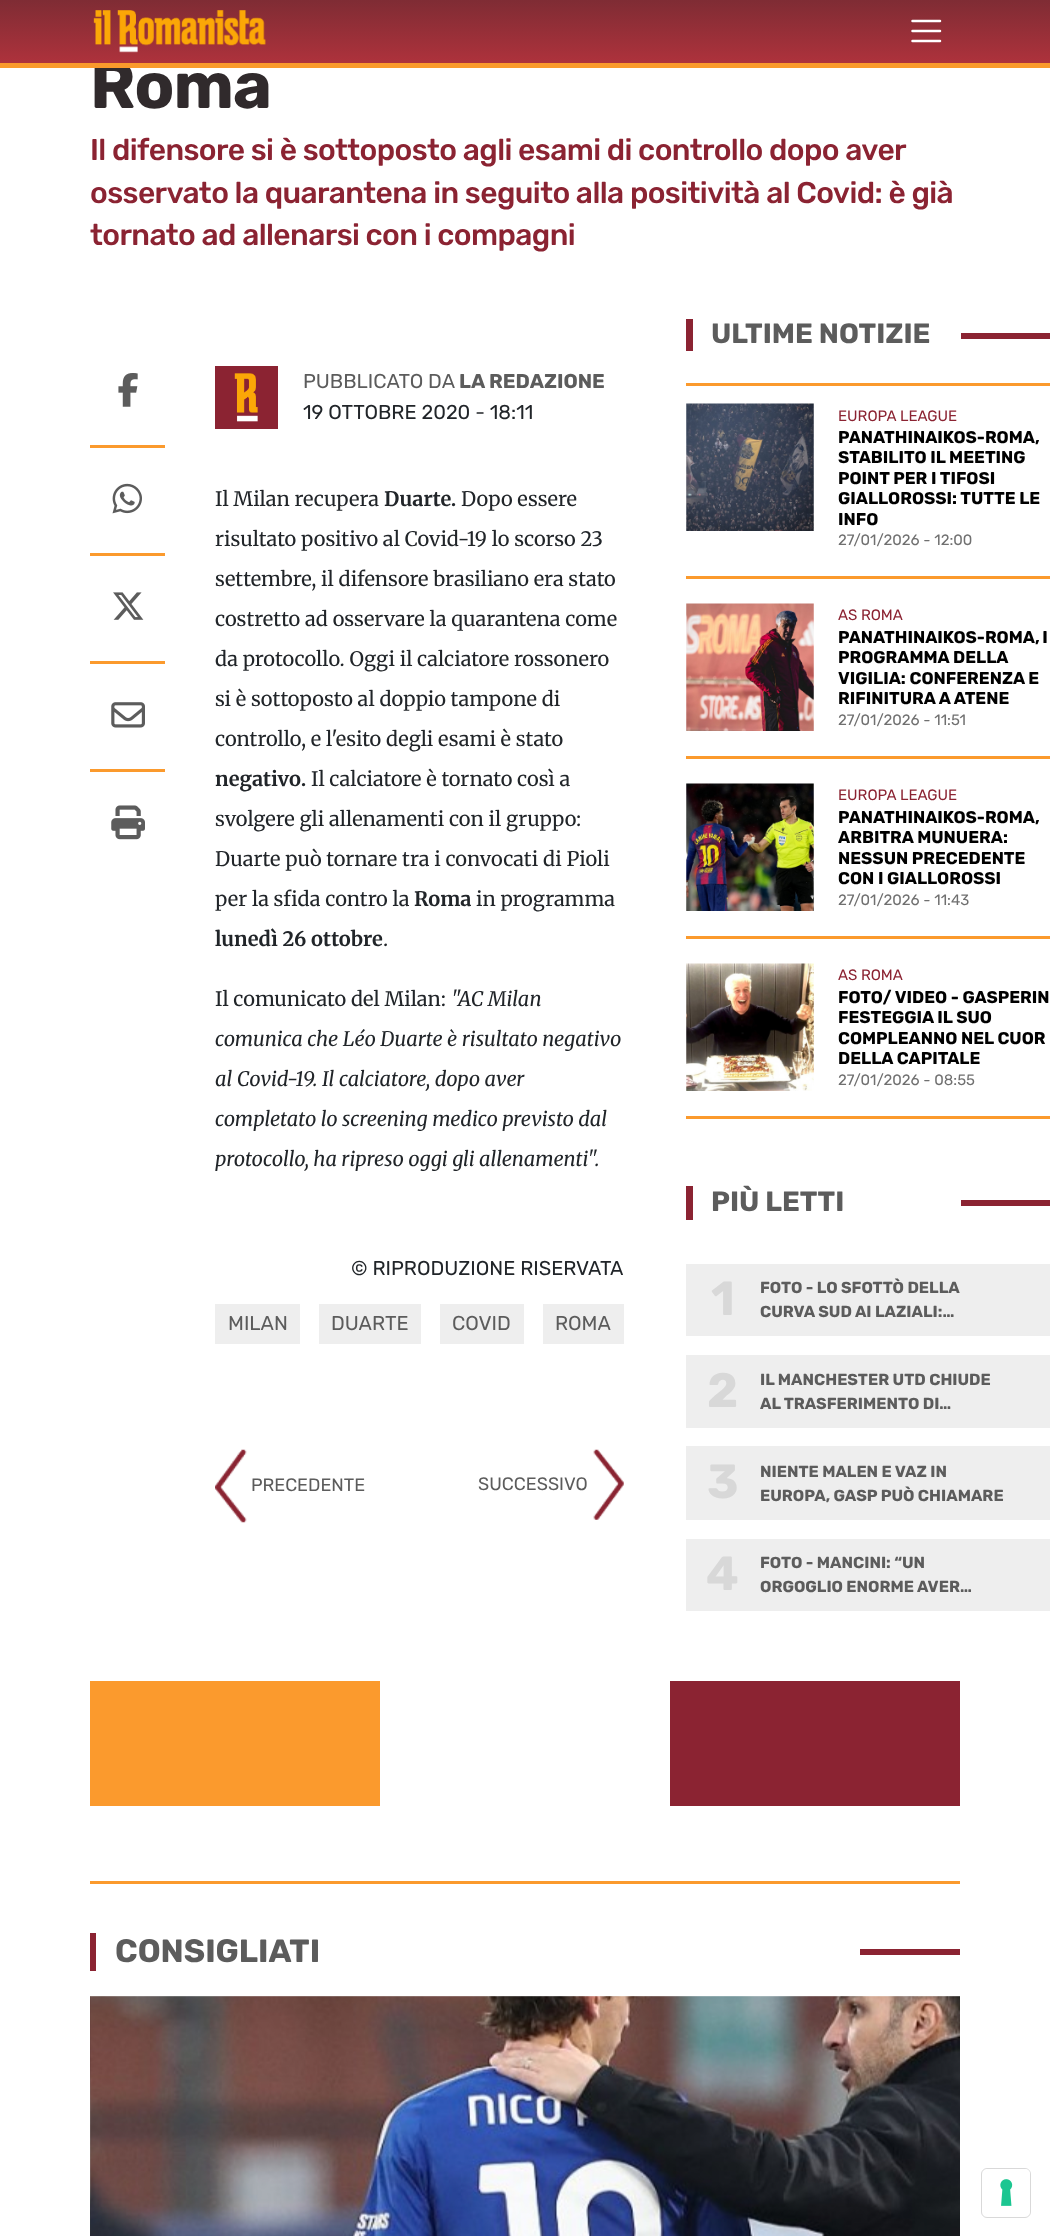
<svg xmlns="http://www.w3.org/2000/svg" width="1050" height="2236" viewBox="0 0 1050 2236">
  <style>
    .t1 { font: bold 66px Rubik; letter-spacing: -1px; fill: #302a2c; }
    .t2 { font: 500 30px Rubik; letter-spacing: -0.6px; fill: #8b2332; }
    .t3 { font: 20px Rubik; fill: #5c5c5c; }
    .t4 { font: bold 20px Rubik; fill: #5c5c5c; }
    .t5 { font: 20px Rubik; fill: #212529; }
    .t6 { font: 20px Merriweather; fill: #212529; }
    .t7 { font: bold 20px Merriweather; fill: #212529; }
    .t8 { font: italic 20px Merriweather; fill: #212529; }
    .t9 { font: 18px Rubik; fill: #5c5c5c; }
    .t10 { font: bold 28px Rubik; fill: #5c5c5c; }
    .t11 { font: 15px Rubik; fill: #8b2332; }
    .t12 { font: bold 17px Rubik; fill: #000; }
    .t13 { font: 15px Rubik; fill: #707070; }
    .t14 { font: bold 48px Rubik; fill: #d8d8d8; }
    .t15 { font: bold 16px Rubik; fill: #5c5c5c; }
    .t16 { font: bold 32.25px Rubik; fill: #5c5c5c; }
  </style>
  <defs>
    <linearGradient id="g1" gradientUnits="userSpaceOnUse" x1="525" y1="0" x2="525" y2="63"><stop offset="0" stop-color="#7f2c34"/><stop offset="1" stop-color="#ae323c"/></linearGradient>
  </defs>
  <rect width="100%" height="100%" fill="#fff"/>
  <text x="90" y="108" class="t1">Roma</text>
  <rect x="0" y="63" width="1050" height="5" fill="#fa9a2c"/>
  <rect x="0" y="0" width="1050" height="63" fill="url(#g1)"/>
  <image x="93" y="10" width="173" height="43" href="images/1.png"/>
  <path d="M912.5 21H940M912.5 31H940M912.5 41H940" fill="none" stroke="#fff" stroke-width="2.5" stroke-linecap="round"/>
  <text x="90" y="160" class="t2">Il difensore si è sottoposto agli esami di controllo dopo aver</text>
  <text x="90" y="203" class="t2">osservato la quarantena in seguito alla positività al Covid: è già</text>
  <text x="90" y="245" class="t2">tornato ad allenarsi con i compagni</text>
  <rect x="90" y="445" width="75" height="3" fill="#fb9a2d"/>
  <image x="118" y="373" width="20" height="34" href="images/2.png"/>
  <rect x="90" y="553" width="75" height="3" fill="#fb9a2d"/>
  <image x="112" y="483" width="30" height="31" href="images/3.png"/>
  <rect x="90" y="661" width="75" height="3" fill="#fb9a2d"/>
  <image x="113" y="592" width="31" height="28" href="images/4.png"/>
  <rect x="90" y="769" width="75" height="3" fill="#fb9a2d"/>
  <image x="111" y="702" width="34" height="26" href="images/5.png"/>
  <image x="111" y="805" width="34" height="35" href="images/6.png"/>
  <rect x="215" y="366" width="63" height="63" fill="#8b2332"/>
  <image x="234" y="373" width="24" height="49" href="images/7.png"/>
  <text x="303" y="388" class="t3">PUBBLICATO DA</text>
  <text x="459" y="388" class="t4">LA REDAZIONE</text>
  <text x="303" y="419" class="t5">19 OTTOBRE 2020 - 18:11</text>
  <text x="215" y="506" class="t6">Il Milan recupera</text>
  <text x="384" y="506" class="t7">Duarte.</text>
  <text x="461" y="506" class="t6">Dopo essere</text>
  <text x="215" y="546" class="t6">risultato positivo al Covid-19 lo scorso 23</text>
  <text x="215" y="586" class="t6">settembre, il difensore brasiliano era stato</text>
  <text x="215" y="626" class="t6">costretto ad osservare la quarantena come</text>
  <text x="215" y="666" class="t6">da protocollo. Oggi il calciatore rossonero</text>
  <text x="215" y="706" class="t6">si è sottoposto al doppio tampone di</text>
  <text x="215" y="746" class="t6">controllo, e l'esito degli esami è stato</text>
  <text x="215" y="786" class="t7">negativo.</text>
  <text x="311" y="786" class="t6">Il calciatore è tornato così a</text>
  <text x="215" y="826" class="t6">svolgere gli allenamenti con il gruppo:</text>
  <text x="215" y="866" class="t6">Duarte può tornare tra i convocati di Pioli</text>
  <text x="215" y="906" class="t6">per la sfida contro la</text>
  <text x="414" y="906" class="t7">Roma</text>
  <text x="476" y="906" class="t6">in programma</text>
  <text x="215" y="946" class="t7">lunedì 26 ottobre</text>
  <text x="383" y="946" class="t6">.</text>
  <text x="215" y="1006" class="t6">Il comunicato del Milan:</text>
  <text x="451" y="1006" class="t8">"AC Milan</text>
  <text x="215" y="1046" class="t8">comunica che Léo Duarte è risultato negativo</text>
  <text x="215" y="1086" class="t8">al Covid-19. Il calciatore, dopo aver</text>
  <text x="215" y="1126" class="t8">completato lo screening medico previsto dal</text>
  <text x="215" y="1166" class="t8">protocollo, ha ripreso oggi gli allenamenti".</text>
  <text x="351" y="1275" class="t5">© RIPRODUZIONE RISERVATA</text>
  <rect x="215" y="1304" width="85" height="40" fill="#eee"/>
  <text x="228" y="1330" class="t3">MILAN</text>
  <rect x="319" y="1304" width="102" height="40" fill="#eee"/>
  <text x="331" y="1330" class="t3">DUARTE</text>
  <rect x="440" y="1304" width="84" height="40" fill="#eee"/>
  <text x="452" y="1330" class="t3">COVID</text>
  <rect x="543" y="1304" width="81" height="40" fill="#eee"/>
  <text x="555" y="1330" class="t3">ROMA</text>
  <image x="215" y="1449" width="32" height="74" href="images/8.png"/>
  <text x="251" y="1491" class="t9">PRECEDENTE</text>
  <text x="478" y="1490" class="t9">SUCCESSIVO</text>
  <image x="593" y="1449" width="31" height="71" href="images/9.png"/>
  <rect x="686" y="319" width="7" height="32" fill="#8b2332"/>
  <text x="711" y="343" class="t10">ULTIME NOTIZIE</text>
  <rect x="961" y="333" width="89" height="6" fill="#8b2332"/>
  <rect x="686" y="383" width="364" height="3" fill="#fb9a2d"/>
  <rect x="686" y="576" width="364" height="3" fill="#fb9a2d"/>
  <image x="686" y="403" width="128" height="128" href="images/10.png"/>
  <text x="838" y="421" class="t11">EUROPA LEAGUE</text>
  <text x="838" y="443" class="t12">PANATHINAIKOS-ROMA,</text>
  <text x="838" y="463" class="t12">STABILITO IL MEETING</text>
  <text x="838" y="484" class="t12">POINT PER I TIFOSI</text>
  <text x="838" y="504" class="t12">GIALLOROSSI: TUTTE LE</text>
  <text x="838" y="525" class="t12">INFO</text>
  <text x="838" y="545" class="t13">27/01/2026 - 12:00</text>
  <rect x="686" y="756" width="364" height="3" fill="#fb9a2d"/>
  <image x="686" y="603" width="128" height="128" href="images/11.png"/>
  <text x="838" y="620" class="t11">AS ROMA</text>
  <text x="838" y="643" word-spacing="-1" class="t12">PANATHINAIKOS-ROMA, I</text>
  <text x="838" y="663" class="t12">PROGRAMMA DELLA</text>
  <text x="838" y="684" class="t12">VIGILIA: CONFERENZA E</text>
  <text x="838" y="704" class="t12">RIFINITURA A ATENE</text>
  <text x="838" y="725" class="t13">27/01/2026 - 11:51</text>
  <rect x="686" y="936" width="364" height="3" fill="#fb9a2d"/>
  <image x="686" y="783" width="128" height="128" href="images/12.png"/>
  <text x="838" y="800" class="t11">EUROPA LEAGUE</text>
  <text x="838" y="823" class="t12">PANATHINAIKOS-ROMA,</text>
  <text x="838" y="843" class="t12">ARBITRA MUNUERA:</text>
  <text x="838" y="864" class="t12">NESSUN PRECEDENTE</text>
  <text x="838" y="884" class="t12">CON I GIALLOROSSI</text>
  <text x="838" y="905" class="t13">27/01/2026 - 11:43</text>
  <rect x="686" y="1116" width="364" height="3" fill="#fb9a2d"/>
  <image x="686" y="963" width="128" height="128" href="images/13.png"/>
  <text x="838" y="980" class="t11">AS ROMA</text>
  <text x="838" y="1003" class="t12">FOTO/ VIDEO - GASPERIN</text>
  <text x="838" y="1023" class="t12">FESTEGGIA IL SUO</text>
  <text x="838" y="1044" class="t12">COMPLEANNO NEL CUOR</text>
  <text x="838" y="1064" class="t12">DELLA CAPITALE</text>
  <text x="838" y="1085" class="t13">27/01/2026 - 08:55</text>
  <rect x="686" y="1186" width="7" height="34" fill="#8b2332"/>
  <text x="711" y="1211" class="t10">PIÙ LETTI</text>
  <rect x="961" y="1200" width="89" height="6" fill="#8b2332"/>
  <rect x="686" y="1264" width="364" height="72" fill="#eee"/>
  <text x="711" y="1315" class="t14">1</text>
  <text x="760" y="1293" class="t15">FOTO - LO SFOTTÒ DELLA</text>
  <text x="760" y="1317" class="t15">CURVA SUD AI LAZIALI:…</text>
  <rect x="686" y="1355" width="364" height="73" fill="#eee"/>
  <text x="707" y="1407" class="t14">2</text>
  <text x="760" y="1385" class="t15">IL MANCHESTER UTD CHIUDE</text>
  <text x="760" y="1409" class="t15">AL TRASFERIMENTO DI…</text>
  <rect x="686" y="1446" width="364" height="74" fill="#eee"/>
  <text x="707" y="1498" class="t14">3</text>
  <text x="760" y="1477" class="t15">NIENTE MALEN E VAZ IN</text>
  <text x="760" y="1501" class="t15">EUROPA, GASP PUÒ CHIAMARE</text>
  <rect x="686" y="1539" width="364" height="72" fill="#eee"/>
  <text x="706" y="1590" class="t14">4</text>
  <text x="760" y="1568" class="t15">FOTO - MANCINI: “UN</text>
  <text x="760" y="1592" class="t15">ORGOGLIO ENORME AVER…</text>
  <rect x="90" y="1681" width="290" height="125" fill="#fb9a2d"/>
  <rect x="670" y="1681" width="290" height="125" fill="#8b2332"/>
  <rect x="90" y="1881" width="870" height="3" fill="#fb9a2d"/>
  <rect x="90" y="1933" width="6" height="38" fill="#8b2332"/>
  <text x="115" y="1962" class="t16">CONSIGLIATI</text>
  <rect x="860" y="1949" width="100" height="6" fill="#8b2332"/>
  <image x="90" y="1996" width="870" height="240" href="images/14.png"/>
  <rect x="981.5" y="2168.5" width="49" height="49" rx="5.5" fill="none" stroke="#d9d9d9"/>
  <rect x="983" y="2169" width="47" height="47" rx="5" fill="#fff"/>
  <image x="1000" y="2179" width="13" height="27" href="images/15.png"/>
</svg>
